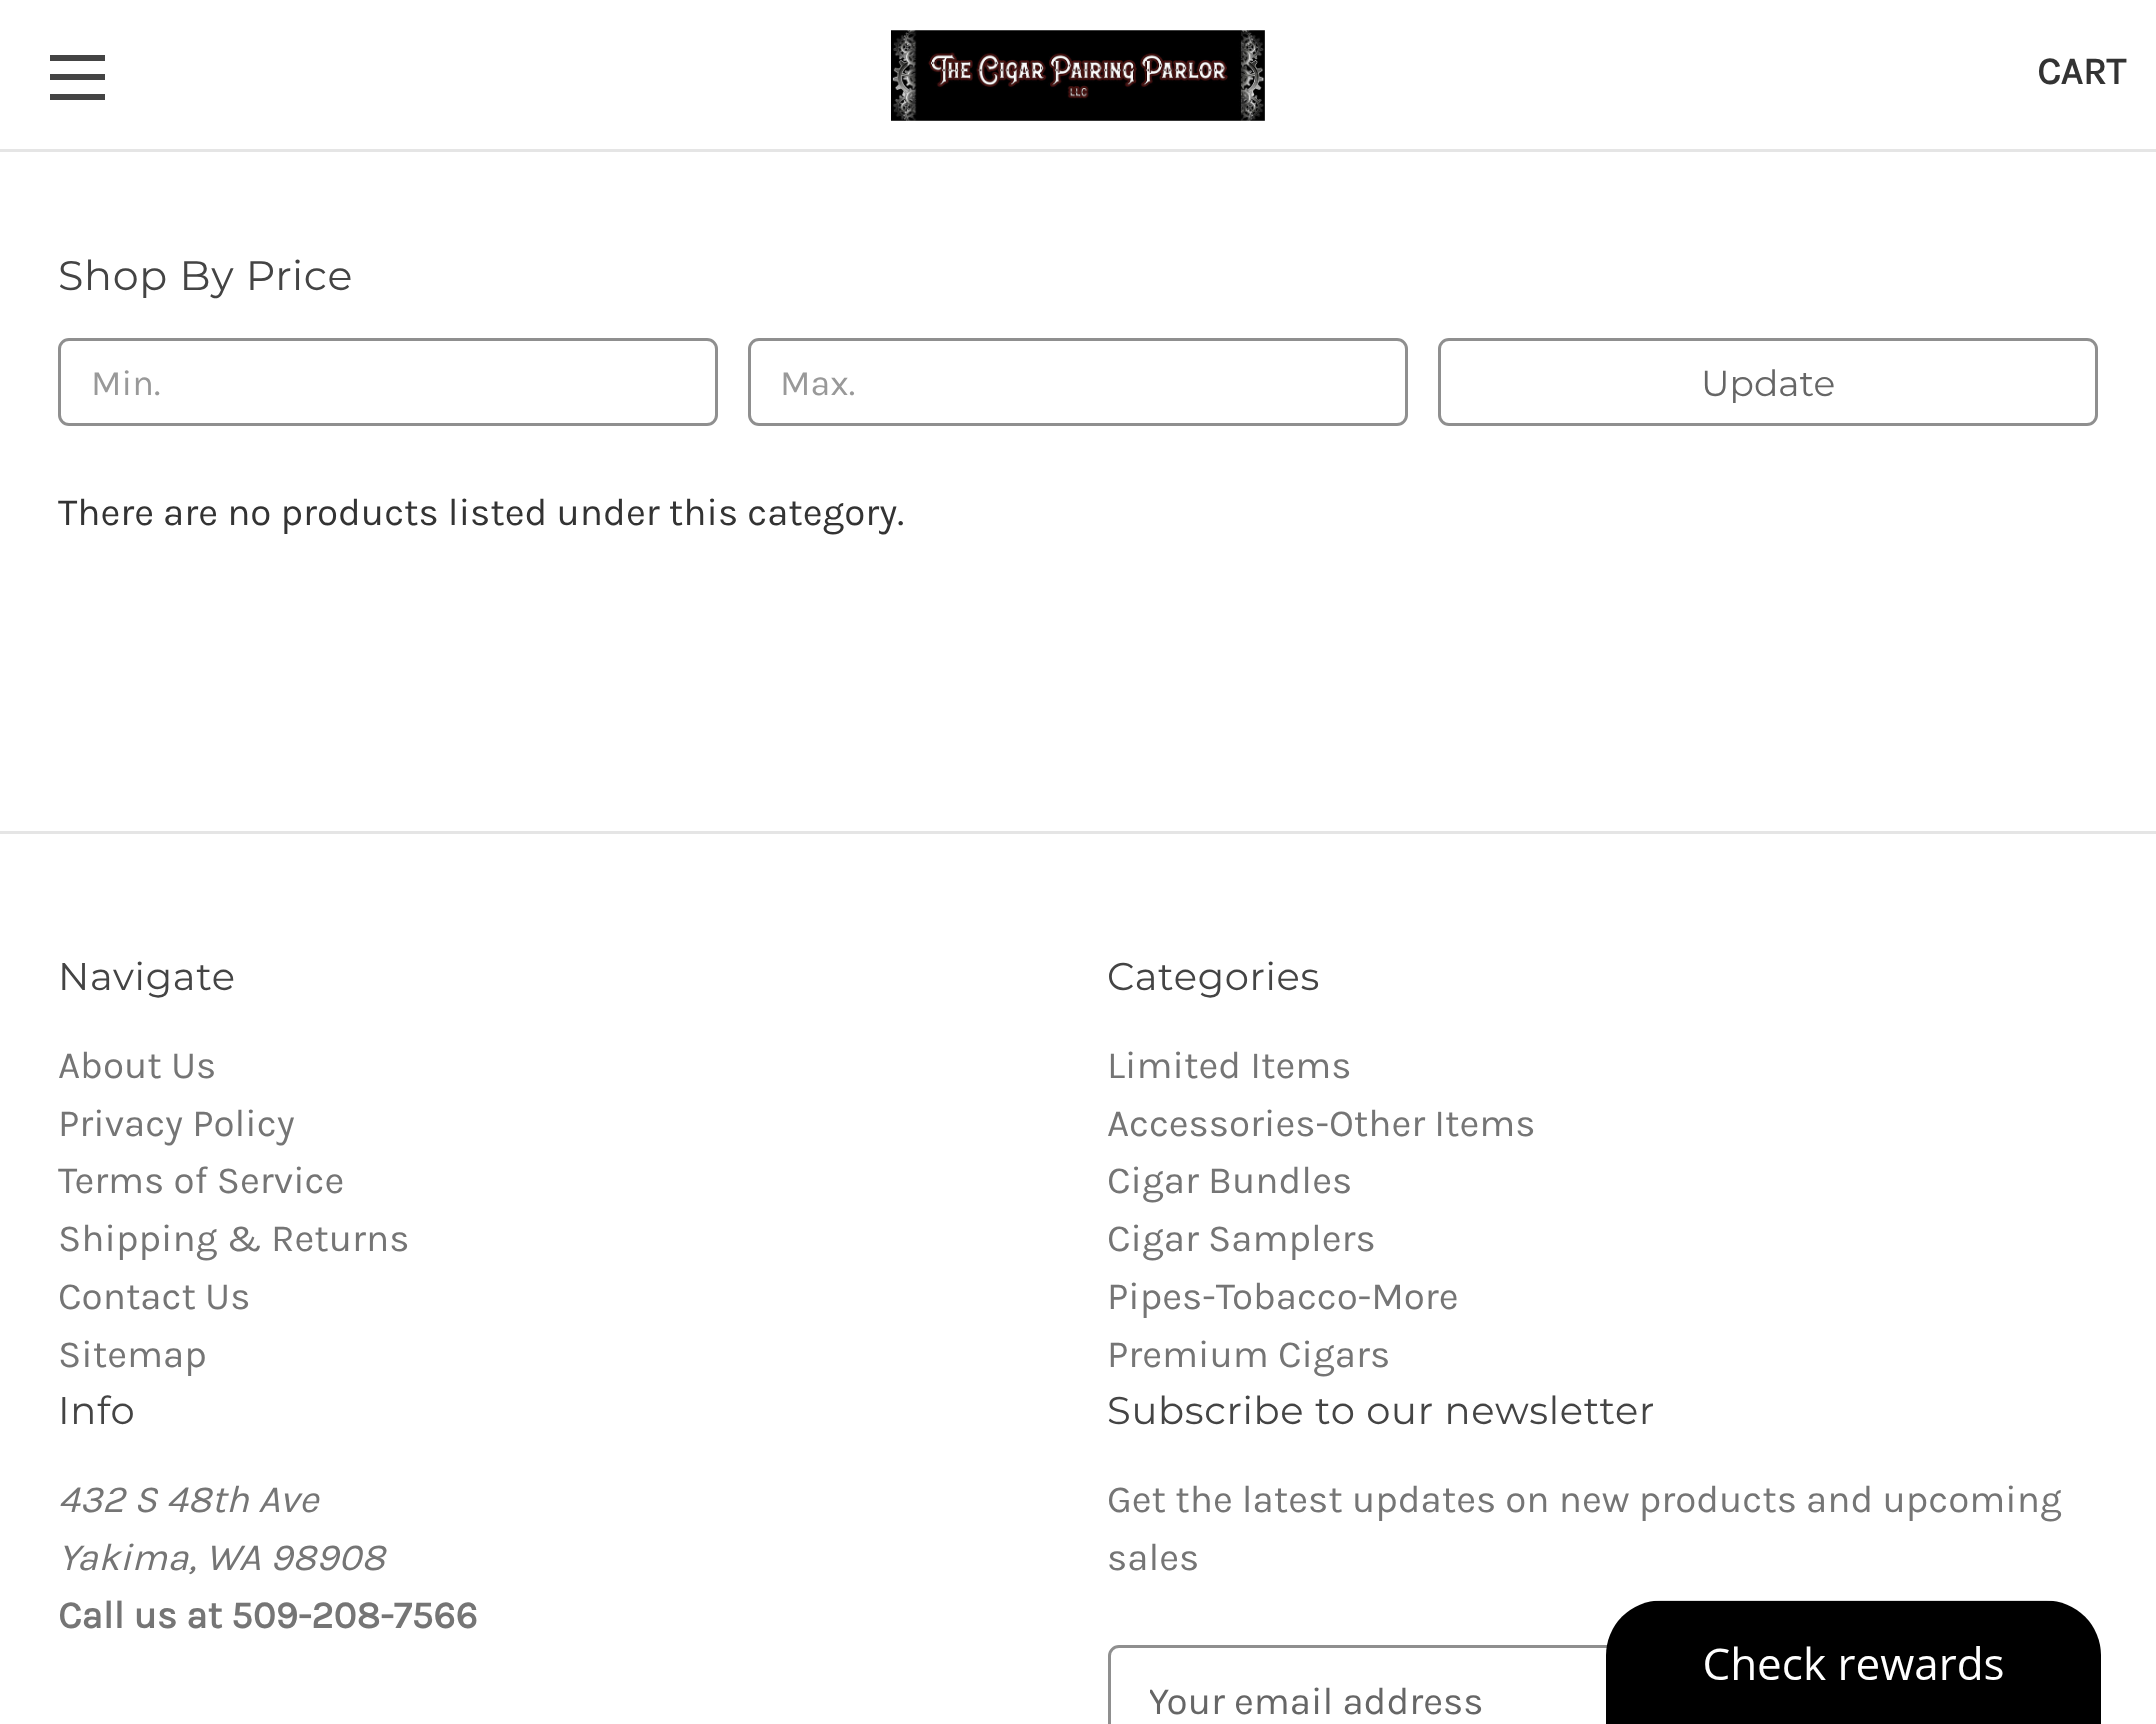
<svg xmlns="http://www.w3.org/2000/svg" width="2156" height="1724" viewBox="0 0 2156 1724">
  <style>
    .t1 { font: bold 38.5px Karla; fill: #333; }
    .t2 { font: 41.25px Montserrat; letter-spacing: 0.7px; fill: #444; }
    .t3 { font: 36px Karla; fill: #999; }
    .t4 { font: 36px Montserrat; fill: #666; }
    .t5 { font: 38.5px Karla; fill: #333; }
    .t6 { font: 38.5px Montserrat; letter-spacing: 0.7px; fill: #444; }
    .t7 { font: 38.5px Karla; fill: #757575; }
    .t8 { font: italic 38.5px Karla; fill: #757575; }
    .t9 { font: bold 38.5px Karla; fill: #757575; }
    .t10 { font: 38.5px Karla; fill: #666; }
  </style>
  <defs>
    <clipPath id="clip1"><rect x="1150" y="1678" width="907" height="46"/></clipPath>
  </defs>
  <rect width="100%" height="100%" fill="#fff"/>
  <rect x="0" y="149" width="2156" height="3" fill="#e5e5e5"/>
  <rect x="50" y="74" width="55" height="6" fill="#444"/>
  <rect x="50" y="55" width="55" height="6" fill="#444"/>
  <rect x="50" y="94" width="55" height="6" fill="#444"/>
  <image x="891" y="30" width="374" height="91" href="images/1.png"/>
  <text x="2037" y="84" class="t1">CART</text>
  <text x="58" y="290" class="t2">Shop By Price</text>
  <rect x="59.5" y="339.5" width="657" height="85" rx="9.5" fill="none" stroke="#8f8f8f" stroke-width="3"/>
  <text x="91" y="395" class="t3">Min.</text>
  <rect x="749.5" y="339.5" width="657" height="85" rx="9.5" fill="none" stroke="#8f8f8f" stroke-width="3"/>
  <text x="780" y="395" class="t3">Max.</text>
  <rect x="1439.5" y="339.5" width="657" height="85" rx="9.5" fill="none" stroke="#8f8f8f" stroke-width="3"/>
  <text x="1701" y="396" class="t4">Update</text>
  <text x="58" y="525" class="t5">There are no products listed under this category.</text>
  <rect x="0" y="831" width="2156" height="3" fill="#e5e5e5"/>
  <text x="58" y="990" class="t6">Navigate</text>
  <text x="58" y="1078" class="t7">About Us</text>
  <text x="58" y="1136" class="t7">Privacy Policy</text>
  <text x="58" y="1193" class="t7">Terms of Service</text>
  <text x="58" y="1251" class="t7">Shipping &amp; Returns</text>
  <text x="58" y="1309" class="t7">Contact Us</text>
  <text x="58" y="1367" class="t7">Sitemap</text>
  <text x="1107" y="990" class="t6">Categories</text>
  <text x="1107" y="1078" class="t7">Limited Items</text>
  <text x="1107" y="1136" class="t7">Accessories-Other Items</text>
  <text x="1107" y="1193" class="t7">Cigar Bundles</text>
  <text x="1107" y="1251" class="t7">Cigar Samplers</text>
  <text x="1107" y="1309" class="t7">Pipes-Tobacco-More</text>
  <text x="1107" y="1367" class="t7">Premium Cigars</text>
  <text x="58" y="1424" class="t6">Info</text>
  <text x="58" y="1512" class="t8">432 S 48th Ave</text>
  <text x="58" y="1570" class="t8">Yakima, WA 98908</text>
  <text x="58" y="1628" class="t9">Call us at 509-208-7566</text>
  <text x="1107" y="1424" class="t6">Subscribe to our newsletter</text>
  <text x="1107" y="1512" class="t7">Get the latest updates on new products and upcoming</text>
  <text x="1107" y="1570" class="t7">sales</text>
  <rect x="1109.5" y="1646.5" width="987" height="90" rx="9.5" fill="none" stroke="#8f8f8f" stroke-width="3"/>
  <g clip-path="url(#clip1)">
    <text x="1148" y="1714" class="t10">Your email address</text>
  </g>
  <image x="1606" y="1600" width="495" height="124" href="images/2.png"/>
</svg>
